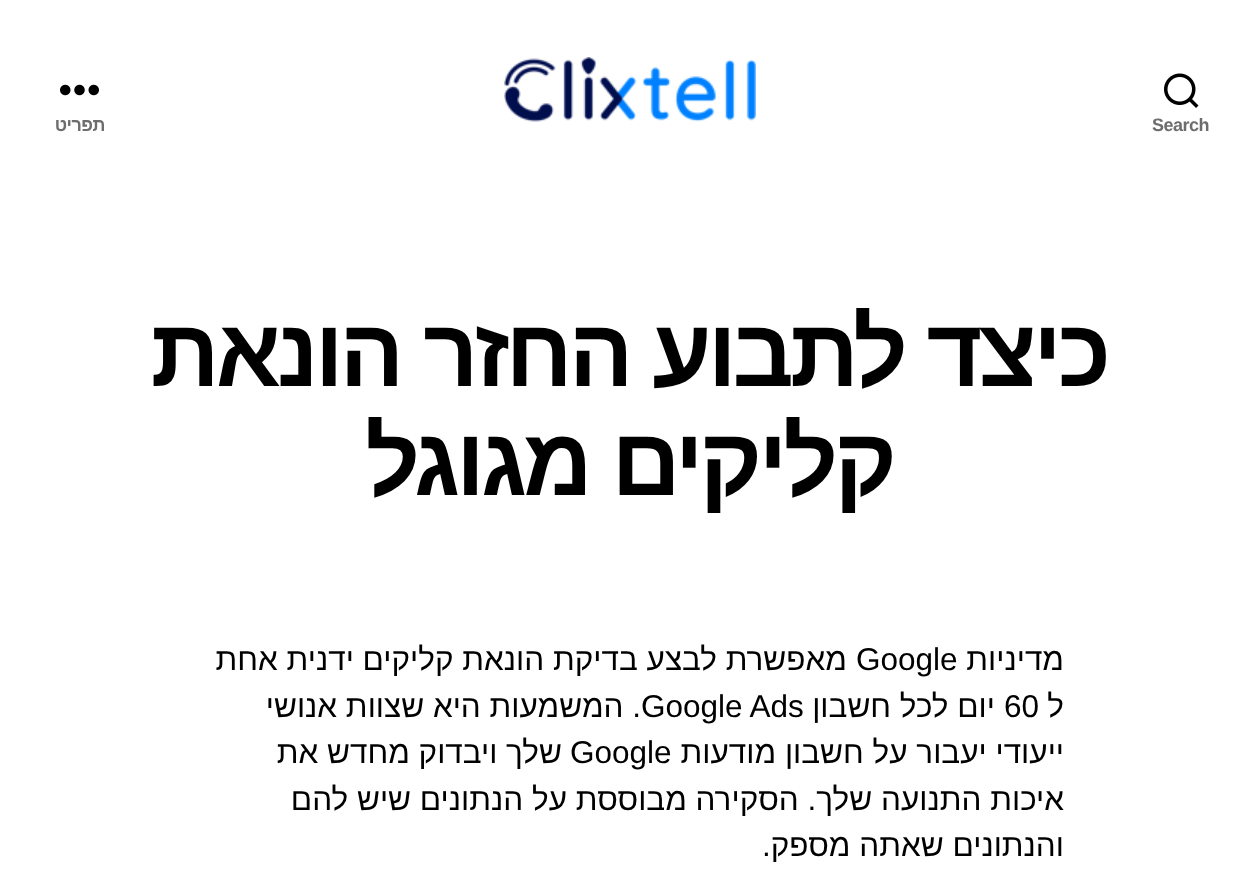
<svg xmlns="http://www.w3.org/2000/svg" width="1258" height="893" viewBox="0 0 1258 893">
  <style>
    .t1 { font: bold 18px Liberation Sans; letter-spacing: -0.5px; fill: #6d6d6d; }
    .t2 { font: bold 18px Liberation Sans; letter-spacing: -0.5px; direction: rtl; fill: #6d6d6d; }
    .t3 { font: bold 96px Liberation Sans; letter-spacing: -4px; direction: rtl; fill: #000; }
    .t4 { font: 31.5px Liberation Sans; direction: rtl; fill: #000; }
    .t5 { font: 31.5px Liberation Sans; fill: #000; }
  </style>
  <rect width="100%" height="100%" fill="#fff"/>
  <image x="504" y="57" width="252" height="65" href="images/1.png"/>
  <image x="1164" y="73" width="35" height="35" href="images/2.png"/>
  <text x="1152" y="131" class="t1">Search</text>
  <image x="60" y="84" width="39" height="12" href="images/3.png"/>
  <text x="105" y="131" class="t2">תפריט</text>
  <text x="1107" y="386" class="t3">כיצד לתבוע החזר הונאת</text>
  <text x="893" y="495" class="t3">קליקים מגוגל</text>
  <text x="1064" y="670" class="t4">מדיניות</text>
  <text x="856" y="670" class="t5">Google</text>
  <text x="847" y="670" class="t4">מאפשרת לבצע בדיקת הונאת קליקים ידנית אחת</text>
  <text x="1064" y="717" class="t4">ל</text>
  <text x="1004" y="717" class="t5">60</text>
  <text x="995" y="717" class="t4">יום לכל חשבון</text>
  <text x="641" y="717" class="t5">Google Ads</text>
  <text x="641" y="717" class="t4">. המשמעות היא שצוות אנושי</text>
  <text x="1064" y="763" class="t4">ייעודי יעבור על חשבון מודעות</text>
  <text x="570" y="763" class="t5">Google</text>
  <text x="562" y="763" class="t4">שלך ויבדוק מחדש את</text>
  <text x="1064" y="810" class="t4">איכות התנועה שלך. הסקירה מבוססת על הנתונים שיש להם</text>
  <text x="1064" y="856" class="t4">והנתונים שאתה מספק.</text>
</svg>
